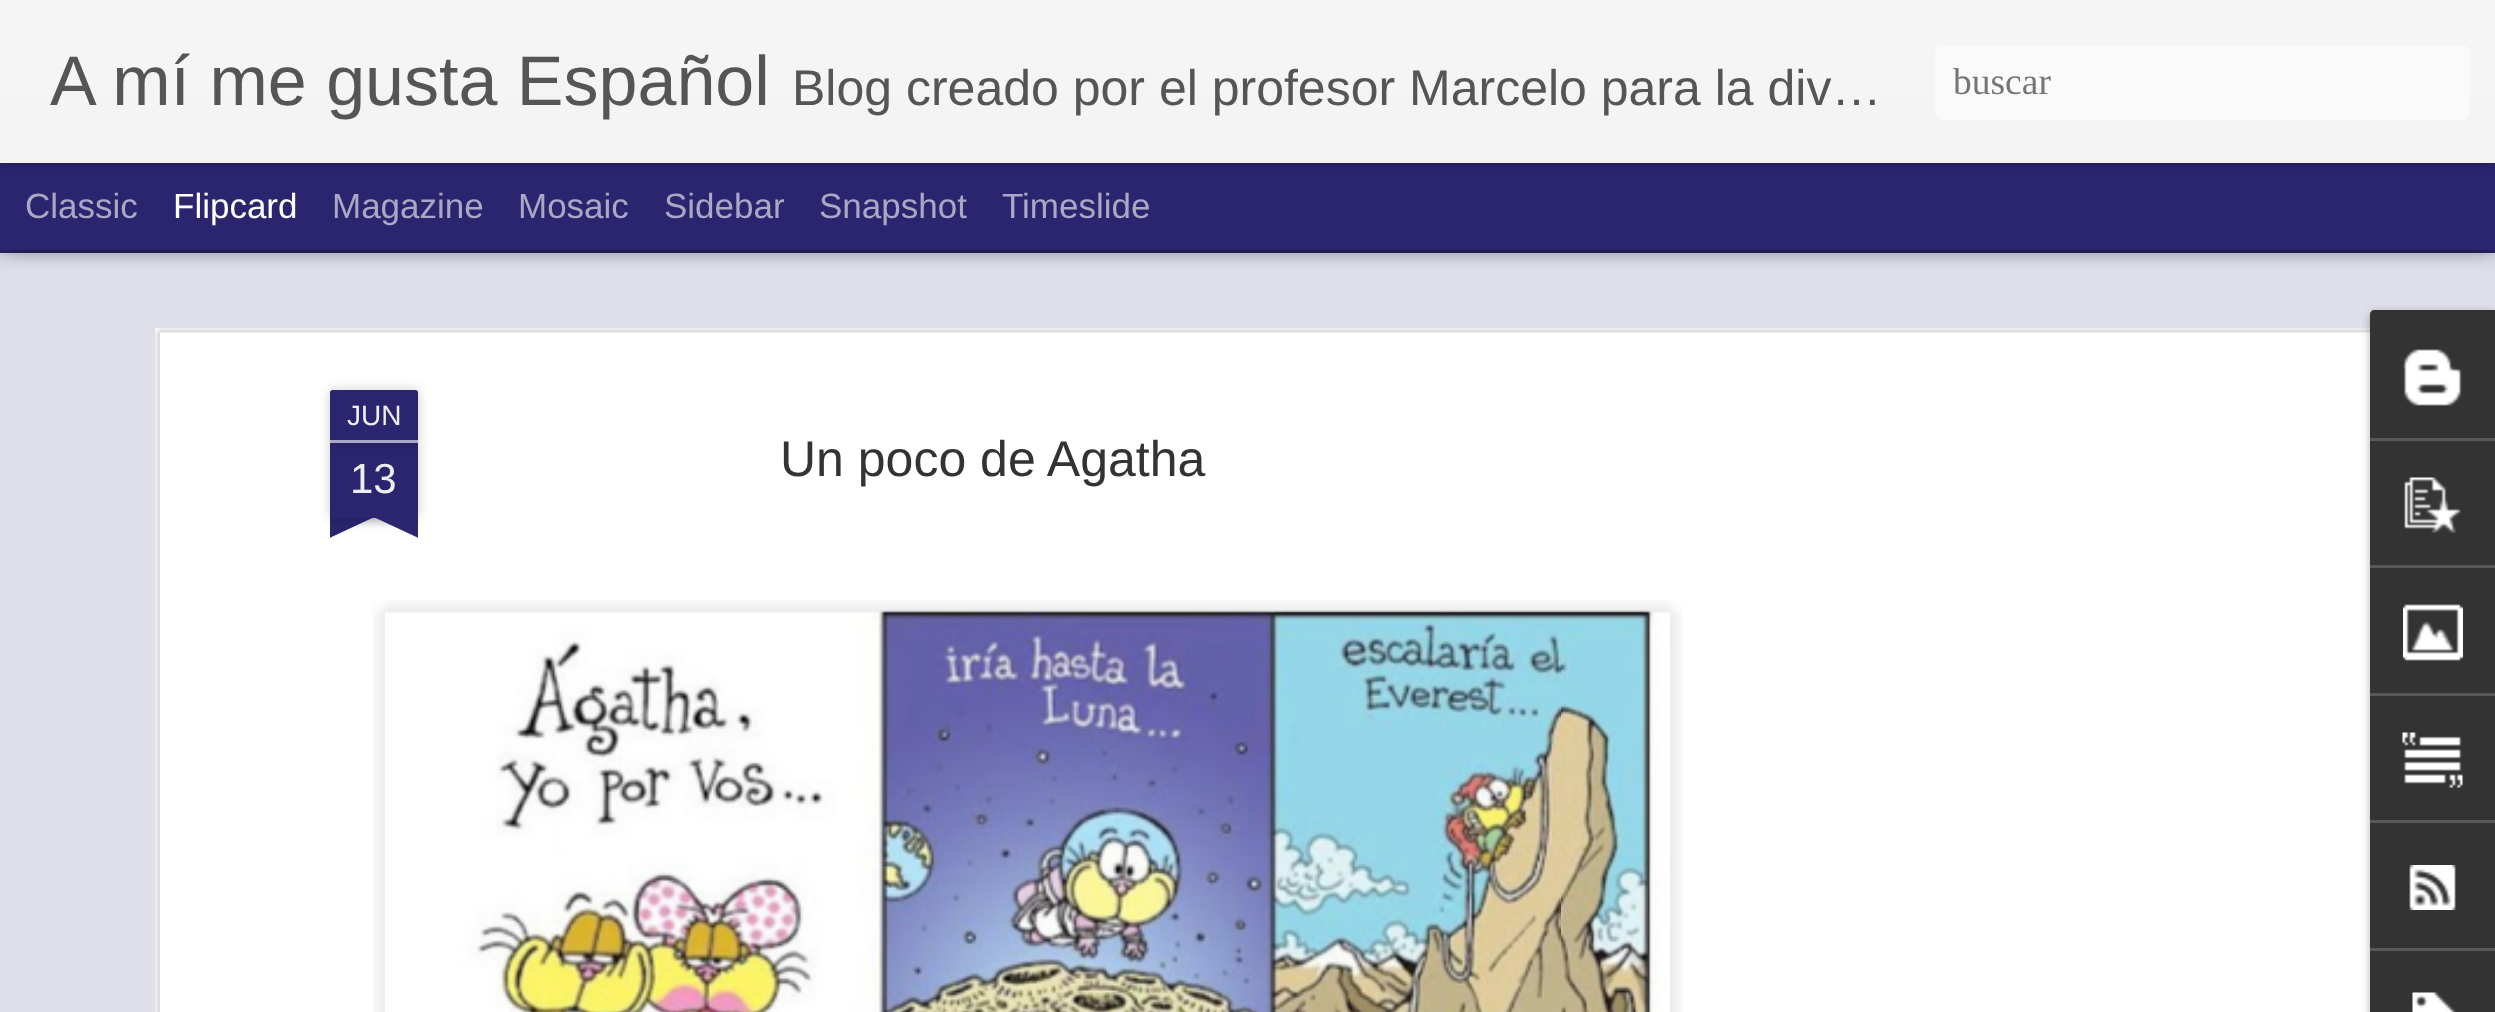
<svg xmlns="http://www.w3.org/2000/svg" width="2495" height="1012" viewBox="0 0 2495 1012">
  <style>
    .t1 { font: 70px Liberation Sans; fill: #555; }
    .t2 { font: 50px Liberation Sans; fill: #555; }
    .t3 { font: 37.5px Liberation Serif; fill: #757575; }
    .t4 { font: 35px Liberation Sans; fill: #aaa8c5; }
    .t5 { font: 35px Liberation Sans; fill: #fff; }
    .t6 { font: 28px Liberation Sans; fill: #eee; }
    .t7 { font: 42px Liberation Sans; fill: #eee; }
    .t8 { font: 50px Liberation Sans; fill: #333; }
  </style>
  <defs>
    <linearGradient id="g1" gradientUnits="userSpaceOnUse" x1="0" y1="0" x2="0" y2="163"><stop offset="0" stop-color="#f6f6f6"/><stop offset="1" stop-color="#f3f3f3"/></linearGradient>
    <clipPath id="clip1"><rect x="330" y="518" width="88" height="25"/></clipPath>
    <clipPath id="clip2"><rect x="330" y="518" width="88" height="25"/></clipPath>
  </defs>
  <rect width="100%" height="100%" fill="#2b256f"/>
  <rect x="0" y="253" width="2495" height="759" fill="#dfdfea"/>
  <rect x="0" y="163" width="2495" height="87" fill="#00000080" filter="blur(10px)"/>
  <rect x="0" y="163" width="2495" height="87" fill="#2b256f"/>
  <rect x="0" y="0" width="2495" height="163" fill="#0000004d" filter="blur(6px)"/>
  <rect x="0" y="0" width="2495" height="163" fill="url(#g1)"/>
  <text x="50" y="105" class="t1">A mí me gusta Español</text>
  <text x="792" y="105" class="t2">Blog creado por el profesor Marcelo para la div…</text>
  <rect x="1935" y="45" width="535" height="75" rx="8" fill="#fafafa"/>
  <text x="1953" y="94" class="t3">buscar</text>
  <text x="25" y="218" class="t4">Classic</text>
  <text x="173" y="218" class="t5">Flipcard</text>
  <text x="332" y="218" class="t4">Magazine</text>
  <text x="518" y="218" class="t4">Mosaic</text>
  <text x="664" y="218" class="t4">Sidebar</text>
  <text x="819" y="218" class="t4">Snapshot</text>
  <text x="1002" y="218" class="t4">Timeslide</text>
  <rect x="155" y="328" width="2215" height="684" fill="#fff"/>
  <image x="155" y="328" width="2215" height="684" href="images/1.png"/>
  <rect x="330" y="443" width="88" height="75" fill="#00000033" filter="blur(6px)"/>
  <rect x="330" y="443" width="88" height="75" fill="#2b256f"/>
  <rect x="330" y="390" width="88" height="53" rx="2.5" fill="#00000033" filter="blur(6px)"/>
  <path d="M332.5 390H415.5C417 390 418 391 418 392.5V443H330V392.5C330 391 331 390 332.5 390Z" fill="#2b256f"/>
  <rect x="330" y="440" width="88" height="3" fill="#aaa8c5"/>
  <text x="347" y="425" class="t6">JUN</text>
  <text x="350" y="493" class="t7">13</text>
  <g clip-path="url(#clip1)">
    <rect x="308" y="493" width="125" height="25" fill="#00000033" filter="blur(6.5px)"/>
  </g>
  <g clip-path="url(#clip2)">
    <path d="M308 520L421 467L432 490L319 543Z" fill="#2b256f"/>
  </g>
  <g clip-path="url(#clip1)">
    <rect x="315" y="493" width="125" height="25" fill="#00000033" filter="blur(6.5px)"/>
  </g>
  <g clip-path="url(#clip2)">
    <path d="M326 467L439 520L429 543L316 490Z" fill="#2b256f"/>
  </g>
  <text x="780" y="476" class="t8">Un poco de Agatha</text>
  <image x="372" y="600" width="1311" height="412" href="images/2.png"/>
  <image x="384" y="610" width="1287" height="402" href="images/3.png"/>
  <rect x="2370" y="313" width="125" height="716" rx="5" fill="#0000004d" filter="blur(4px)"/>
  <path d="M2375 310H2495V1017H2375C2372 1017 2370 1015 2370 1012V315C2370 312 2372 310 2375 310Z" fill="#333"/>
  <path d="M2375 310H2495V438H2370V315C2370 312 2372 310 2375 310Z" fill="#333"/>
  <image x="2403" y="349" width="59" height="57" href="images/4.png"/>
  <rect x="2370" y="438" width="125" height="3" fill="#585858"/>
  <image x="2404" y="477" width="57" height="56" href="images/5.png"/>
  <rect x="2370" y="565" width="125" height="3" fill="#585858"/>
  <image x="2403" y="604" width="60" height="57" href="images/6.png"/>
  <rect x="2370" y="693" width="125" height="3" fill="#585858"/>
  <image x="2402" y="732" width="61" height="56" href="images/7.png"/>
  <rect x="2370" y="820" width="125" height="3" fill="#585858"/>
  <image x="2409" y="865" width="47" height="45" href="images/8.png"/>
  <rect x="2370" y="948" width="125" height="3" fill="#585858"/>
  <image x="2412" y="992" width="44" height="20" href="images/9.png"/>
</svg>
